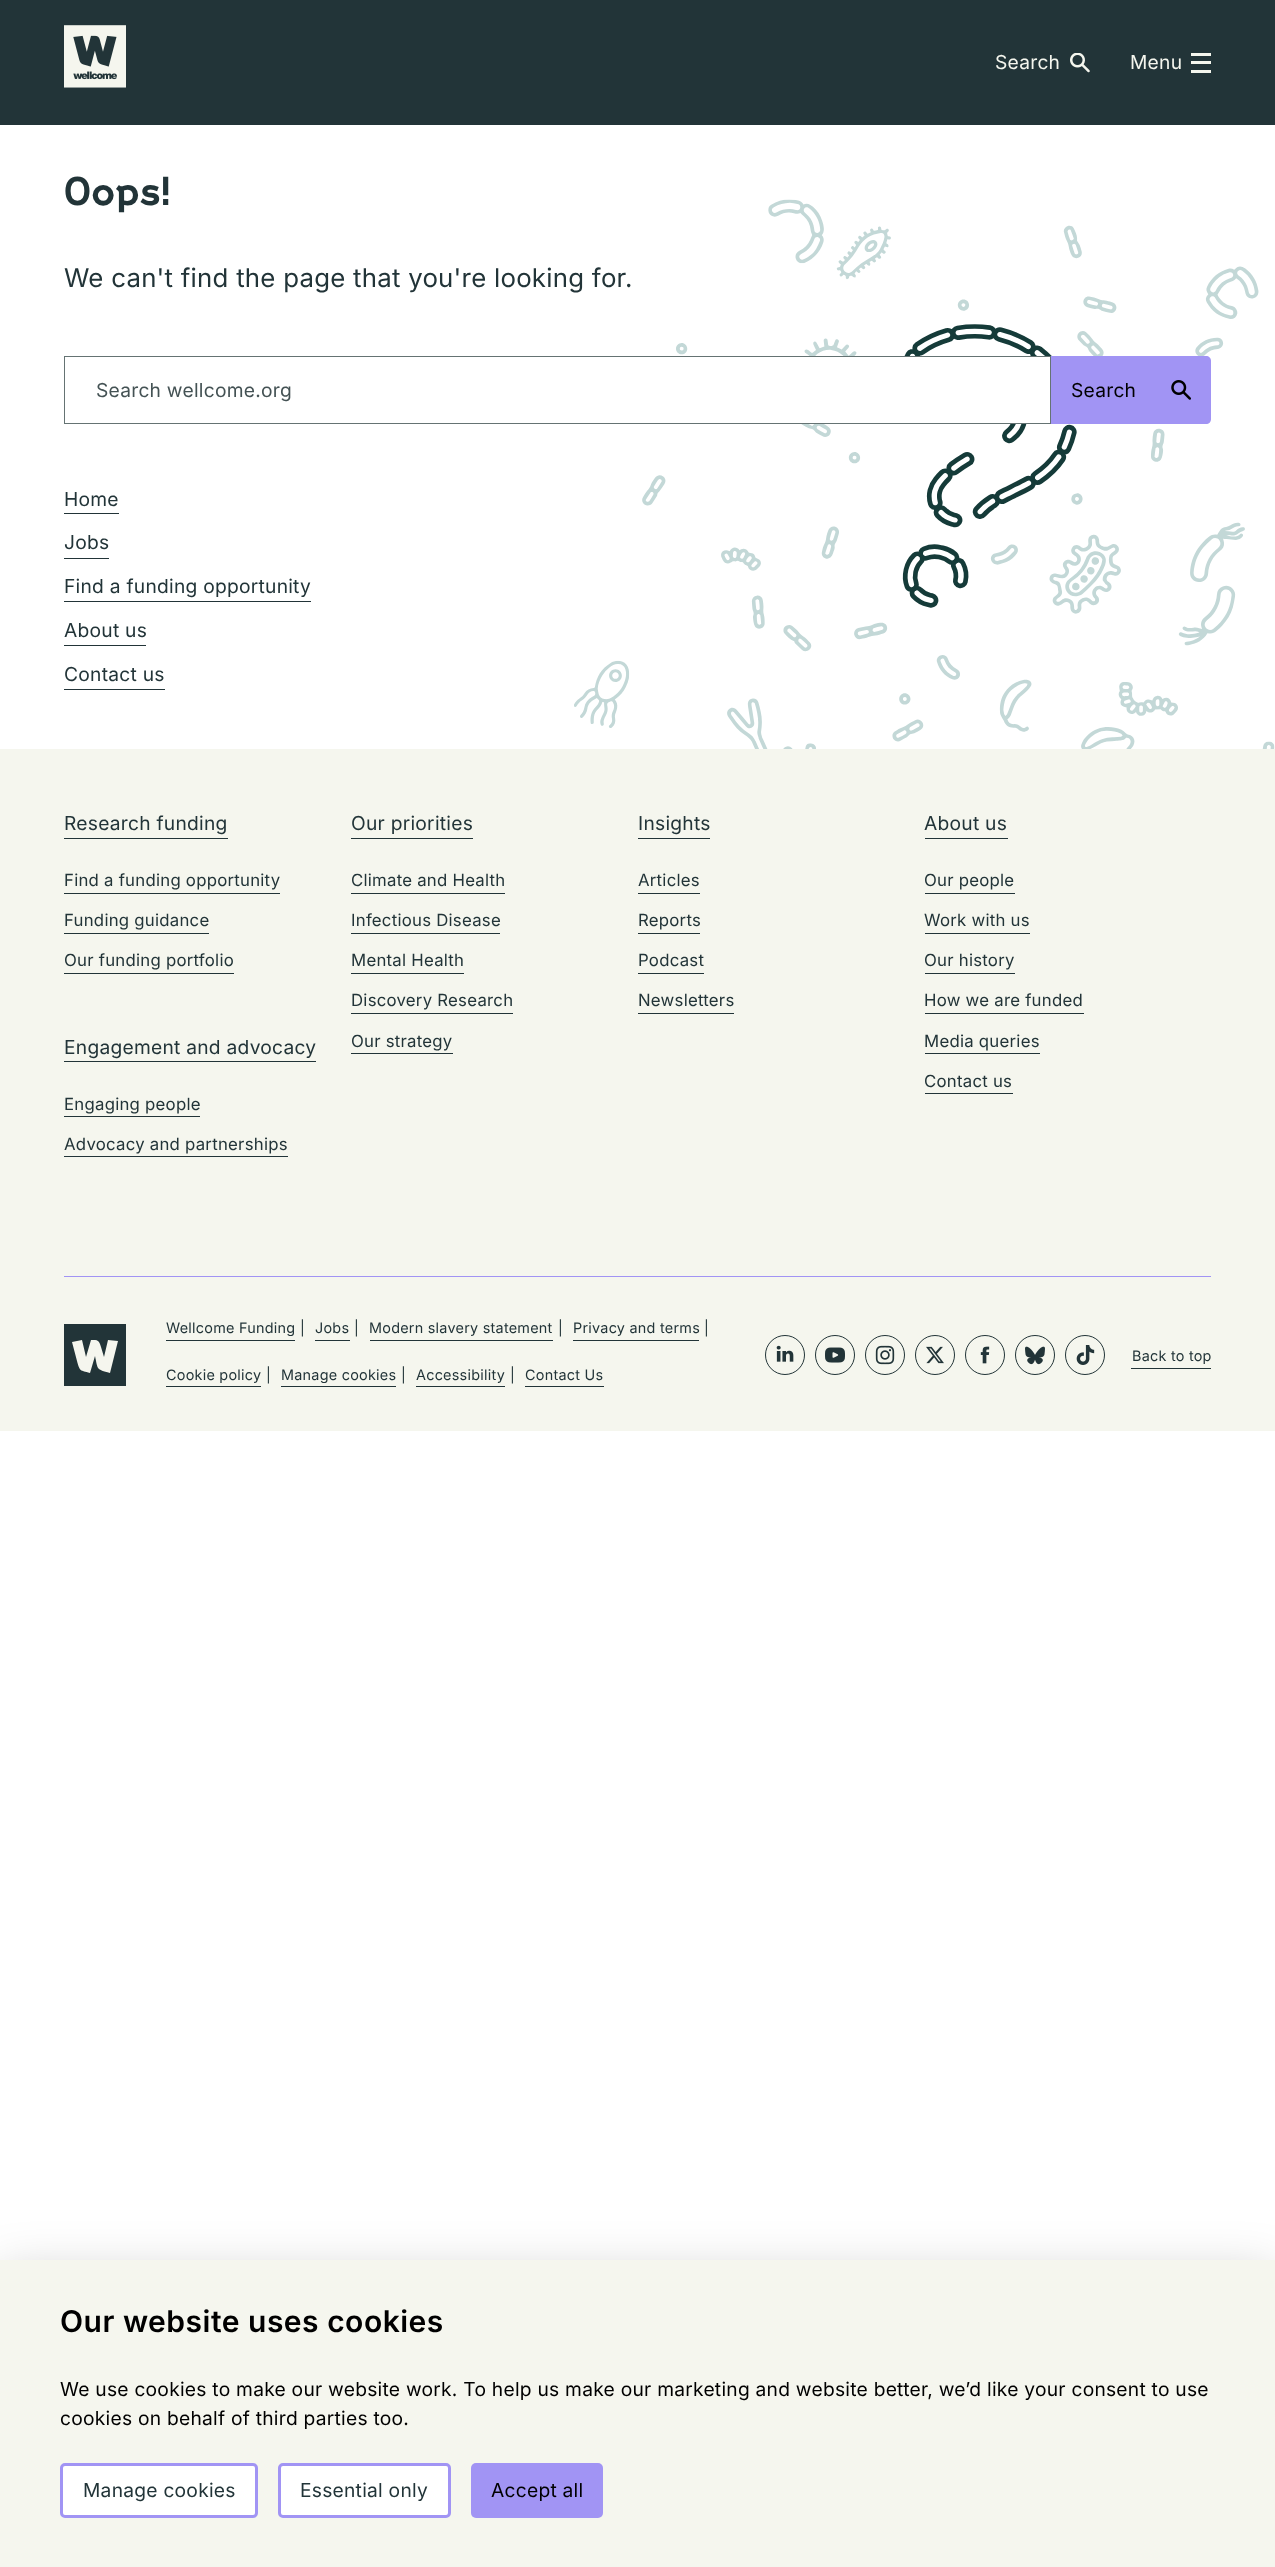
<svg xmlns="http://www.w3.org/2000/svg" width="1275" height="2567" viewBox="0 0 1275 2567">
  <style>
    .t1 { font: 19.22px Inter; letter-spacing: 0.25px; fill: #f5f6ee; }
    .t2 { font: bold 35.5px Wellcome; letter-spacing: 0.25px; fill: #223438; }
    .t3 { font: 25.8px Inter; letter-spacing: 0.25px; fill: #223438; }
    .t4 { font: 19.22px Inter; letter-spacing: 0.25px; fill: #445254; }
    .t5 { font: 19.22px Inter; letter-spacing: 0.25px; fill: #000; }
    .t6 { font: 19.22px Inter; letter-spacing: 0.25px; fill: #223438; }
    .t7 { font: 16.75px Inter; letter-spacing: 0.25px; fill: #223438; }
    .t8 { font: 14.4px Inter; letter-spacing: 0.25px; fill: #223438; }
    .t9 { font: 600 30px Inter; letter-spacing: 0.5px; fill: #000; }
  </style>
  <rect width="100%" height="100%" fill="#fff"/>
  <rect x="0" y="0" width="1275" height="125" fill="#223438"/>
  <image x="64" y="25" width="62" height="63" href="images/1.png"/>
  <text x="995" y="69" class="t1">Search</text>
  <image x="1070" y="53" width="20" height="20" href="images/2.png"/>
  <text x="1130" y="69" class="t1">Menu</text>
  <rect x="1191" y="53" width="20" height="3" fill="#f5f6ee"/>
  <rect x="1191" y="61" width="20" height="3" fill="#f5f6ee"/>
  <rect x="1191" y="70" width="20" height="3" fill="#f5f6ee"/>
  <text x="64" y="205" class="t2">Oops!</text>
  <image x="574" y="199" width="701" height="550" href="images/4.png"/>
  <text x="64" y="287" class="t3">We can't find the page that you're looking for.</text>
  <rect x="621" y="357" width="429" height="66" fill="#fff"/>
  <rect x="64.5" y="356.5" width="986" height="67" fill="none" stroke="#657373"/>
  <text x="96" y="397" class="t4">Search wellcome.org</text>
  <path d="M1051 356H1206C1209 356 1211 358 1211 361V419C1211 422 1209 424 1206 424H1051Z" fill="#a194f4"/>
  <text x="1071" y="397" class="t5">Search</text>
  <image x="1171" y="380" width="20" height="20" href="images/3.png"/>
  <text x="64" y="506" class="t6">Home</text>
  <rect x="64" y="513" width="55" height="1" fill="#223438"/>
  <text x="64" y="549" class="t6">Jobs</text>
  <rect x="64" y="558" width="45" height="1" fill="#223438"/>
  <text x="64" y="593" class="t6">Find a funding opportunity</text>
  <rect x="64" y="601" width="247" height="1" fill="#223438"/>
  <text x="64" y="637" class="t6">About us</text>
  <rect x="64" y="645" width="82" height="1" fill="#223438"/>
  <text x="64" y="681" class="t6">Contact us</text>
  <rect x="64" y="689" width="101" height="1" fill="#223438"/>
  <rect x="0" y="749" width="1275" height="682" fill="#f5f6ee"/>
  <text x="64" y="830" class="t6">Research funding</text>
  <rect x="64" y="838" width="164" height="1" fill="#223438"/>
  <text x="64" y="886" class="t7">Find a funding opportunity</text>
  <rect x="64" y="893" width="216" height="1" fill="#223438"/>
  <text x="64" y="926" class="t7">Funding guidance</text>
  <rect x="64" y="933" width="145" height="1" fill="#223438"/>
  <text x="64" y="966" class="t7">Our funding portfolio</text>
  <rect x="64" y="973" width="170" height="1" fill="#223438"/>
  <text x="64" y="1054" class="t6">Engagement and advocacy</text>
  <rect x="64" y="1061" width="252" height="1" fill="#223438"/>
  <text x="64" y="1110" class="t7">Engaging people</text>
  <rect x="64" y="1116" width="136" height="1" fill="#223438"/>
  <text x="64" y="1150" class="t7">Advocacy and partnerships</text>
  <rect x="64" y="1156" width="224" height="1" fill="#223438"/>
  <text x="351" y="830" class="t6">Our priorities</text>
  <rect x="351" y="838" width="122" height="1" fill="#223438"/>
  <text x="351" y="886" class="t7">Climate and Health</text>
  <rect x="351" y="893" width="154" height="1" fill="#223438"/>
  <text x="351" y="926" class="t7">Infectious Disease</text>
  <rect x="351" y="933" width="149" height="1" fill="#223438"/>
  <text x="351" y="966" class="t7">Mental Health</text>
  <rect x="351" y="973" width="113" height="1" fill="#223438"/>
  <text x="351" y="1006" class="t7">Discovery Research</text>
  <rect x="351" y="1013" width="162" height="1" fill="#223438"/>
  <text x="351" y="1047" class="t7">Our strategy</text>
  <rect x="351" y="1053" width="102" height="1" fill="#223438"/>
  <text x="638" y="830" class="t6">Insights</text>
  <rect x="638" y="838" width="72" height="1" fill="#223438"/>
  <text x="638" y="886" class="t7">Articles</text>
  <rect x="638" y="893" width="62" height="1" fill="#223438"/>
  <text x="638" y="926" class="t7">Reports</text>
  <rect x="638" y="933" width="62" height="1" fill="#223438"/>
  <text x="638" y="966" class="t7">Podcast</text>
  <rect x="638" y="973" width="66" height="1" fill="#223438"/>
  <text x="638" y="1006" class="t7">Newsletters</text>
  <rect x="638" y="1013" width="96" height="1" fill="#223438"/>
  <text x="924" y="830" class="t6">About us</text>
  <rect x="925" y="838" width="83" height="1" fill="#223438"/>
  <text x="924" y="886" class="t7">Our people</text>
  <rect x="925" y="893" width="90" height="1" fill="#223438"/>
  <text x="924" y="926" class="t7">Work with us</text>
  <rect x="925" y="933" width="105" height="1" fill="#223438"/>
  <text x="924" y="966" class="t7">Our history</text>
  <rect x="925" y="973" width="90" height="1" fill="#223438"/>
  <text x="924" y="1006" class="t7">How we are funded</text>
  <rect x="925" y="1013" width="159" height="1" fill="#223438"/>
  <text x="924" y="1047" class="t7">Media queries</text>
  <rect x="925" y="1053" width="115" height="1" fill="#223438"/>
  <text x="924" y="1087" class="t7">Contact us</text>
  <rect x="925" y="1093" width="88" height="1" fill="#223438"/>
  <rect x="64" y="1276" width="1147" height="1" fill="#a194f4"/>
  <path d="M64 1324H126V1386H64ZM110 1373L118 1341L108 1340L104 1357L101 1347C99 1340 98 1340 91 1340L86 1357L82 1340L72 1342L77 1361C80 1372 80 1370 90 1373L95 1356C98 1370 96 1369 110 1373Z" fill="#223438" fill-rule="evenodd"/>
  <rect x="166" y="1340" width="129" height="1" fill="#223438"/>
  <text x="166" y="1333" class="t8">Wellcome Funding</text>
  <text x="300" y="1333" class="t8">|</text>
  <rect x="315" y="1340" width="35" height="1" fill="#223438"/>
  <text x="315" y="1333" class="t8">Jobs</text>
  <text x="354" y="1333" class="t8">|</text>
  <rect x="370" y="1340" width="183" height="1" fill="#223438"/>
  <text x="369" y="1333" class="t8">Modern slavery statement</text>
  <text x="558" y="1333" class="t8">|</text>
  <rect x="573" y="1340" width="126" height="1" fill="#223438"/>
  <text x="573" y="1333" class="t8">Privacy and terms</text>
  <text x="704" y="1333" class="t8">|</text>
  <rect x="166" y="1386" width="95" height="1" fill="#223438"/>
  <text x="166" y="1380" class="t8">Cookie policy</text>
  <text x="266" y="1380" class="t8">|</text>
  <rect x="281" y="1386" width="115" height="1" fill="#223438"/>
  <text x="281" y="1380" class="t8">Manage cookies</text>
  <text x="401" y="1380" class="t8">|</text>
  <rect x="416" y="1386" width="89" height="1" fill="#223438"/>
  <text x="416" y="1380" class="t8">Accessibility</text>
  <text x="510" y="1380" class="t8">|</text>
  <rect x="525" y="1386" width="79" height="1" fill="#223438"/>
  <text x="525" y="1380" class="t8">Contact Us</text>
  <circle cx="785" cy="1355" r="19.5" fill="none" stroke="#223438"/>
  <image x="776" y="1345" width="18" height="17" href="images/5.png"/>
  <circle cx="835" cy="1355" r="19.5" fill="none" stroke="#223438"/>
  <image x="825" y="1347" width="20" height="16" href="images/6.png"/>
  <circle cx="885" cy="1355" r="19.5" fill="none" stroke="#223438"/>
  <image x="875" y="1345" width="20" height="20" href="images/7.png"/>
  <circle cx="935" cy="1355" r="19.5" fill="none" stroke="#223438"/>
  <image x="926" y="1346" width="18" height="18" href="images/8.png"/>
  <circle cx="985" cy="1355" r="19.5" fill="none" stroke="#223438"/>
  <image x="980" y="1346" width="10" height="18" href="images/9.png"/>
  <circle cx="1035" cy="1355" r="19.5" fill="none" stroke="#223438"/>
  <image x="1025" y="1346" width="20" height="19" href="images/10.png"/>
  <circle cx="1085" cy="1355" r="19.5" fill="none" stroke="#223438"/>
  <image x="1076" y="1345" width="19" height="20" href="images/11.png"/>
  <text x="1132" y="1361" class="t8">Back to top</text>
  <rect x="1131" y="1368" width="80" height="1" fill="#223438"/>
  <rect x="0" y="2273" width="1275" height="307" fill="#00000033" filter="blur(25px)"/>
  <rect x="0" y="2260" width="1275" height="307" fill="#f5f6ee"/>
  <text x="60" y="2332" class="t9">Our website uses cookies</text>
  <text x="60" y="2396" class="t5">We use cookies to make our website work. To help us make our marketing and website better, we’d like your consent to use</text>
  <text x="60" y="2425" class="t5">cookies on behalf of third parties too.</text>
  <rect x="61.5" y="2464.5" width="195" height="52" rx="3.5" fill="#fff" stroke="#a194f4" stroke-width="3"/>
  <text x="83" y="2497" class="t6">Manage cookies</text>
  <rect x="279.5" y="2464.5" width="170" height="52" rx="3.5" fill="#fff" stroke="#a194f4" stroke-width="3"/>
  <text x="300" y="2497" class="t6">Essential only</text>
  <rect x="471" y="2463" width="132" height="55" rx="5" fill="#a194f4"/>
  <text x="491" y="2497" class="t5">Accept all</text>
</svg>
